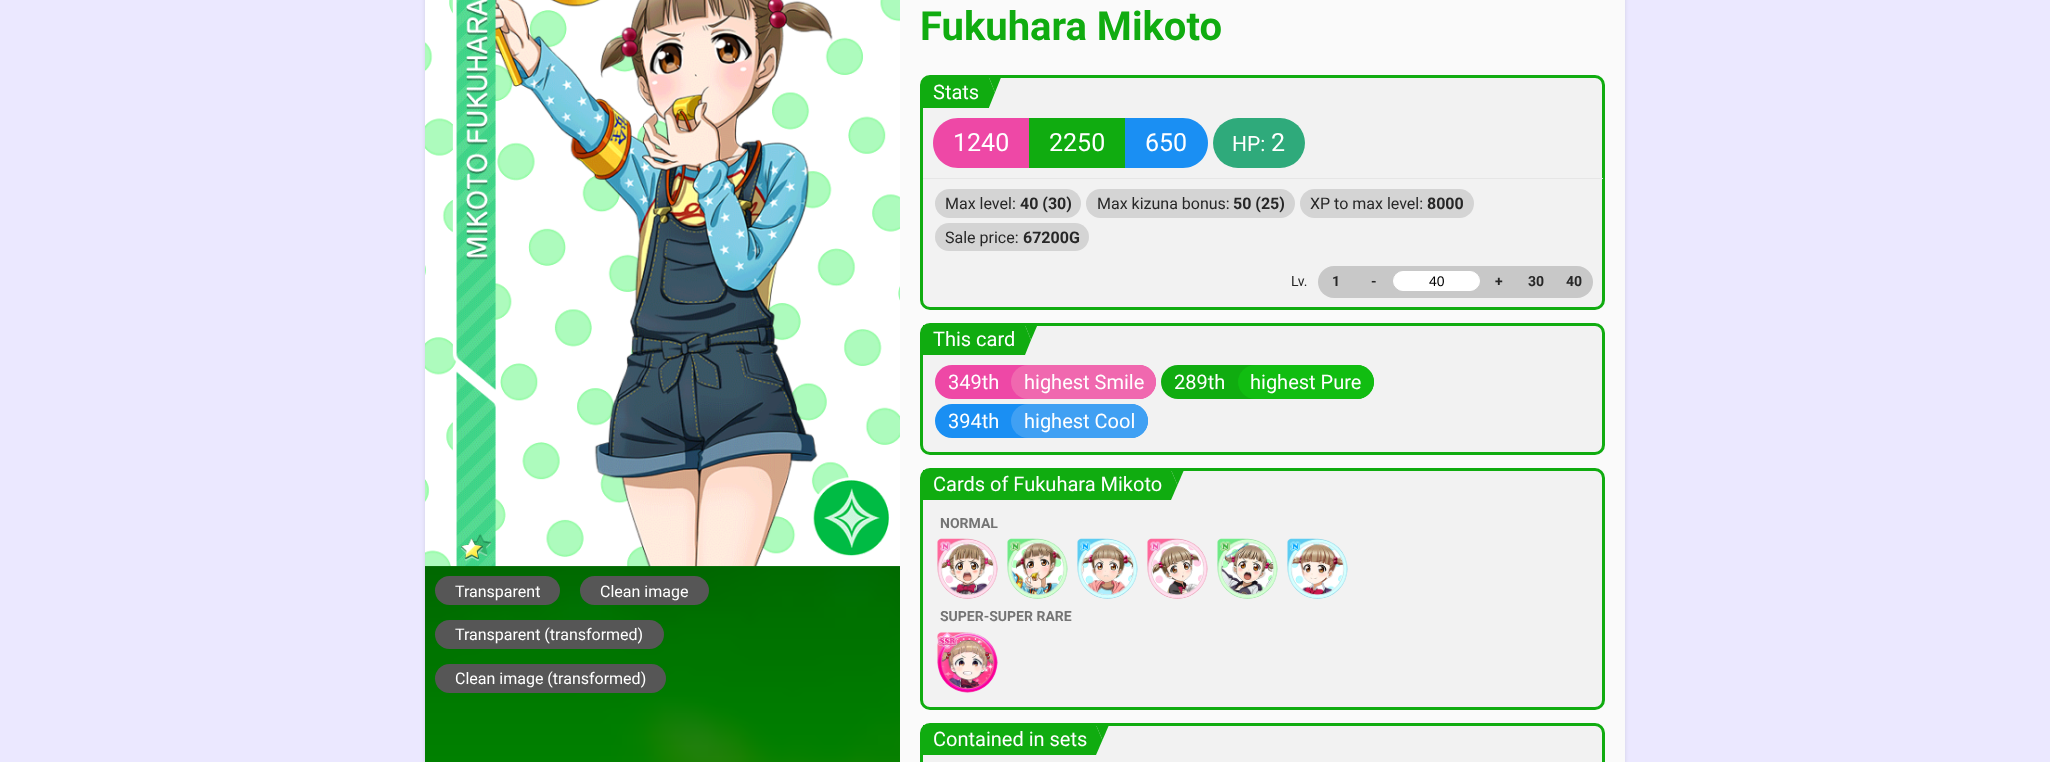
<svg xmlns="http://www.w3.org/2000/svg" width="2050" height="762" viewBox="0 0 2050 762">
  <style>
    .t1 { font: 16px Roboto; fill: #fff; }
    .t2 { font: bold 40px Roboto; fill: #10ac10; }
    .t3 { font: 20px Roboto; fill: #fff; }
    .t4 { font: 25px Roboto; fill: #fff; }
    .t5 { font: 21px Roboto; fill: #fff; }
    .t6 { font: 16px Roboto; fill: #272727; }
    .t7 { font: bold 16px Roboto; fill: #272727; }
    .t8 { font: 14px Roboto; fill: #272727; }
    .t9 { font: bold 14px Roboto; fill: #272727; }
    .t10 { font: 14px Liberation Sans; fill: #000; }
    .t11 { font: bold 14px Roboto; fill: #747474; }
  </style>
  <rect width="100%" height="100%" fill="#ebe8ff"/>
  <rect x="425" y="-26" width="1200" height="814" rx="20" fill="#0000001a" filter="blur(2px)"/>
  <rect x="900" y="0" width="725" height="762" fill="#fafafa"/>
  <image x="425" y="566" width="475" height="196" href="images/1.png"/>
  <image x="425" y="0" width="475" height="567" href="images/2.png"/>
  <rect x="435" y="576" width="125" height="29" rx="14.5" fill="#565656"/>
  <text x="455" y="597" class="t1">Transparent</text>
  <rect x="580" y="576" width="129" height="29" rx="14.5" fill="#565656"/>
  <text x="600" y="597" class="t1">Clean image</text>
  <rect x="435" y="620" width="229" height="29" rx="14.5" fill="#565656"/>
  <text x="455" y="640" class="t1">Transparent (transformed)</text>
  <rect x="435" y="664" width="231" height="29" rx="14.5" fill="#565656"/>
  <text x="455" y="684" class="t1">Clean image (transformed)</text>
  <text x="920" y="40" class="t2">Fukuhara Mikoto</text>
  <rect x="921.5" y="76.5" width="682" height="232" rx="8.5" fill="#f2f2f2" stroke="#10ac10" stroke-width="3"/>
  <rect x="923" y="78" width="66" height="30" fill="#10ac10"/>
  <text x="933" y="99" class="t3">Stats</text>
  <path d="M989 77.5H1001L995 92.5Z" fill="#10ac10"/>
  <path d="M989 107.5V77.5L995 92.5Z" fill="#10ac10"/>
  <path d="M958 118H1029V168H958C944 168 933 157 933 143C933 129 944 118 958 118Z" fill="#ee48a6"/>
  <text x="953" y="151" class="t4">1240</text>
  <rect x="1029" y="118" width="96" height="50" fill="#10ac10"/>
  <text x="1049" y="151" class="t4">2250</text>
  <path d="M1125 118H1183C1197 118 1208 129 1208 143C1208 157 1197 168 1183 168H1125Z" fill="#1a8ff3"/>
  <text x="1145" y="151" class="t4">650</text>
  <rect x="1213" y="118" width="92" height="50" rx="25" fill="#2faa7b"/>
  <text x="1232" y="151" class="t5">HP:</text>
  <text x="1271" y="151" class="t4">2</text>
  <rect x="923" y="178" width="680" height="1" fill="#e6e6e6"/>
  <rect x="935" y="189" width="146" height="29" rx="14.5" fill="#d4d4d4"/>
  <text x="945" y="209" class="t6">Max level:</text>
  <text x="1020" y="209" class="t7">40 (30)</text>
  <rect x="1086" y="189" width="209" height="29" rx="14.5" fill="#d4d4d4"/>
  <text x="1097" y="209" class="t6">Max kizuna bonus:</text>
  <text x="1233" y="209" class="t7">50 (25)</text>
  <rect x="1300" y="189" width="174" height="29" rx="14.5" fill="#d4d4d4"/>
  <text x="1310" y="209" class="t6">XP to max level:</text>
  <text x="1427" y="209" class="t7">8000</text>
  <rect x="935" y="223" width="154" height="28" rx="14" fill="#d4d4d4"/>
  <text x="945" y="243" class="t6">Sale price:</text>
  <text x="1023" y="243" class="t7">67200G</text>
  <text x="1291" y="286" class="t8">Lv.</text>
  <rect x="1318" y="266" width="275" height="32" rx="16" fill="#c8c8c8"/>
  <text x="1332" y="286" class="t9">1</text>
  <text x="1371" y="286" class="t9">-</text>
  <rect x="1393.5" y="271.5" width="86" height="19" rx="9.5" fill="#fff" stroke="#fff"/>
  <text x="1429" y="286" class="t10">40</text>
  <text x="1495" y="286" class="t9">+</text>
  <text x="1528" y="286" class="t9">30</text>
  <text x="1566" y="286" class="t9">40</text>
  <rect x="921.5" y="324.5" width="682" height="129" rx="8.5" fill="#f2f2f2" stroke="#10ac10" stroke-width="3"/>
  <rect x="923" y="325" width="102" height="30" fill="#10ac10"/>
  <text x="933" y="346" class="t3">This card</text>
  <path d="M1025 325H1037.5L1031 340Z" fill="#10ac10"/>
  <path d="M1025 355V325L1031 340Z" fill="#10ac10"/>
  <rect x="935" y="365" width="221" height="34" rx="17" fill="#ee48a6"/>
  <text x="948" y="389" class="t3">349th</text>
  <rect x="1011" y="365" width="145" height="34" rx="17" fill="#f068af"/>
  <text x="1024" y="389" class="t3">highest Smile</text>
  <rect x="1161" y="365" width="213" height="34" rx="17" fill="#10ac10"/>
  <text x="1174" y="389" class="t3">289th</text>
  <rect x="1238" y="365" width="136" height="34" rx="17" fill="#11bd11"/>
  <text x="1250" y="389" class="t3">highest Pure</text>
  <rect x="935" y="404" width="213" height="34" rx="17" fill="#1a8ff3"/>
  <text x="948" y="428" class="t3">394th</text>
  <rect x="1011" y="404" width="137" height="34" rx="17" fill="#40a0f3"/>
  <text x="1024" y="428" class="t3">highest Cool</text>
  <rect x="921.5" y="469.5" width="682" height="239" rx="8.5" fill="#f2f2f2" stroke="#10ac10" stroke-width="3"/>
  <rect x="923" y="470" width="248" height="30" fill="#10ac10"/>
  <text x="933" y="491" class="t3">Cards of Fukuhara Mikoto</text>
  <path d="M1171 470H1184L1177.5 485Z" fill="#10ac10"/>
  <path d="M1171 500V470L1177.5 485Z" fill="#10ac10"/>
  <text x="940" y="528" class="t11">NORMAL</text>
  <image x="937" y="538" width="61" height="61" href="images/3.png"/>
  <image x="1007" y="538" width="61" height="61" href="images/4.png"/>
  <image x="1077" y="538" width="61" height="61" href="images/5.png"/>
  <image x="1147" y="538" width="61" height="61" href="images/6.png"/>
  <image x="1217" y="538" width="61" height="61" href="images/7.png"/>
  <image x="1287" y="538" width="61" height="61" href="images/8.png"/>
  <text x="940" y="621" class="t11">SUPER-SUPER RARE</text>
  <image x="937" y="632" width="61" height="61" href="images/9.png"/>
  <rect x="921.5" y="724.5" width="682" height="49" rx="8.5" fill="#f2f2f2" stroke="#10ac10" stroke-width="3"/>
  <rect x="923" y="725" width="173" height="30" fill="#10ac10"/>
  <text x="933" y="746" class="t3">Contained in sets</text>
  <path d="M1096 725H1109L1102.5 740Z" fill="#10ac10"/>
  <path d="M1096 755V725L1102.5 740Z" fill="#10ac10"/>
</svg>
